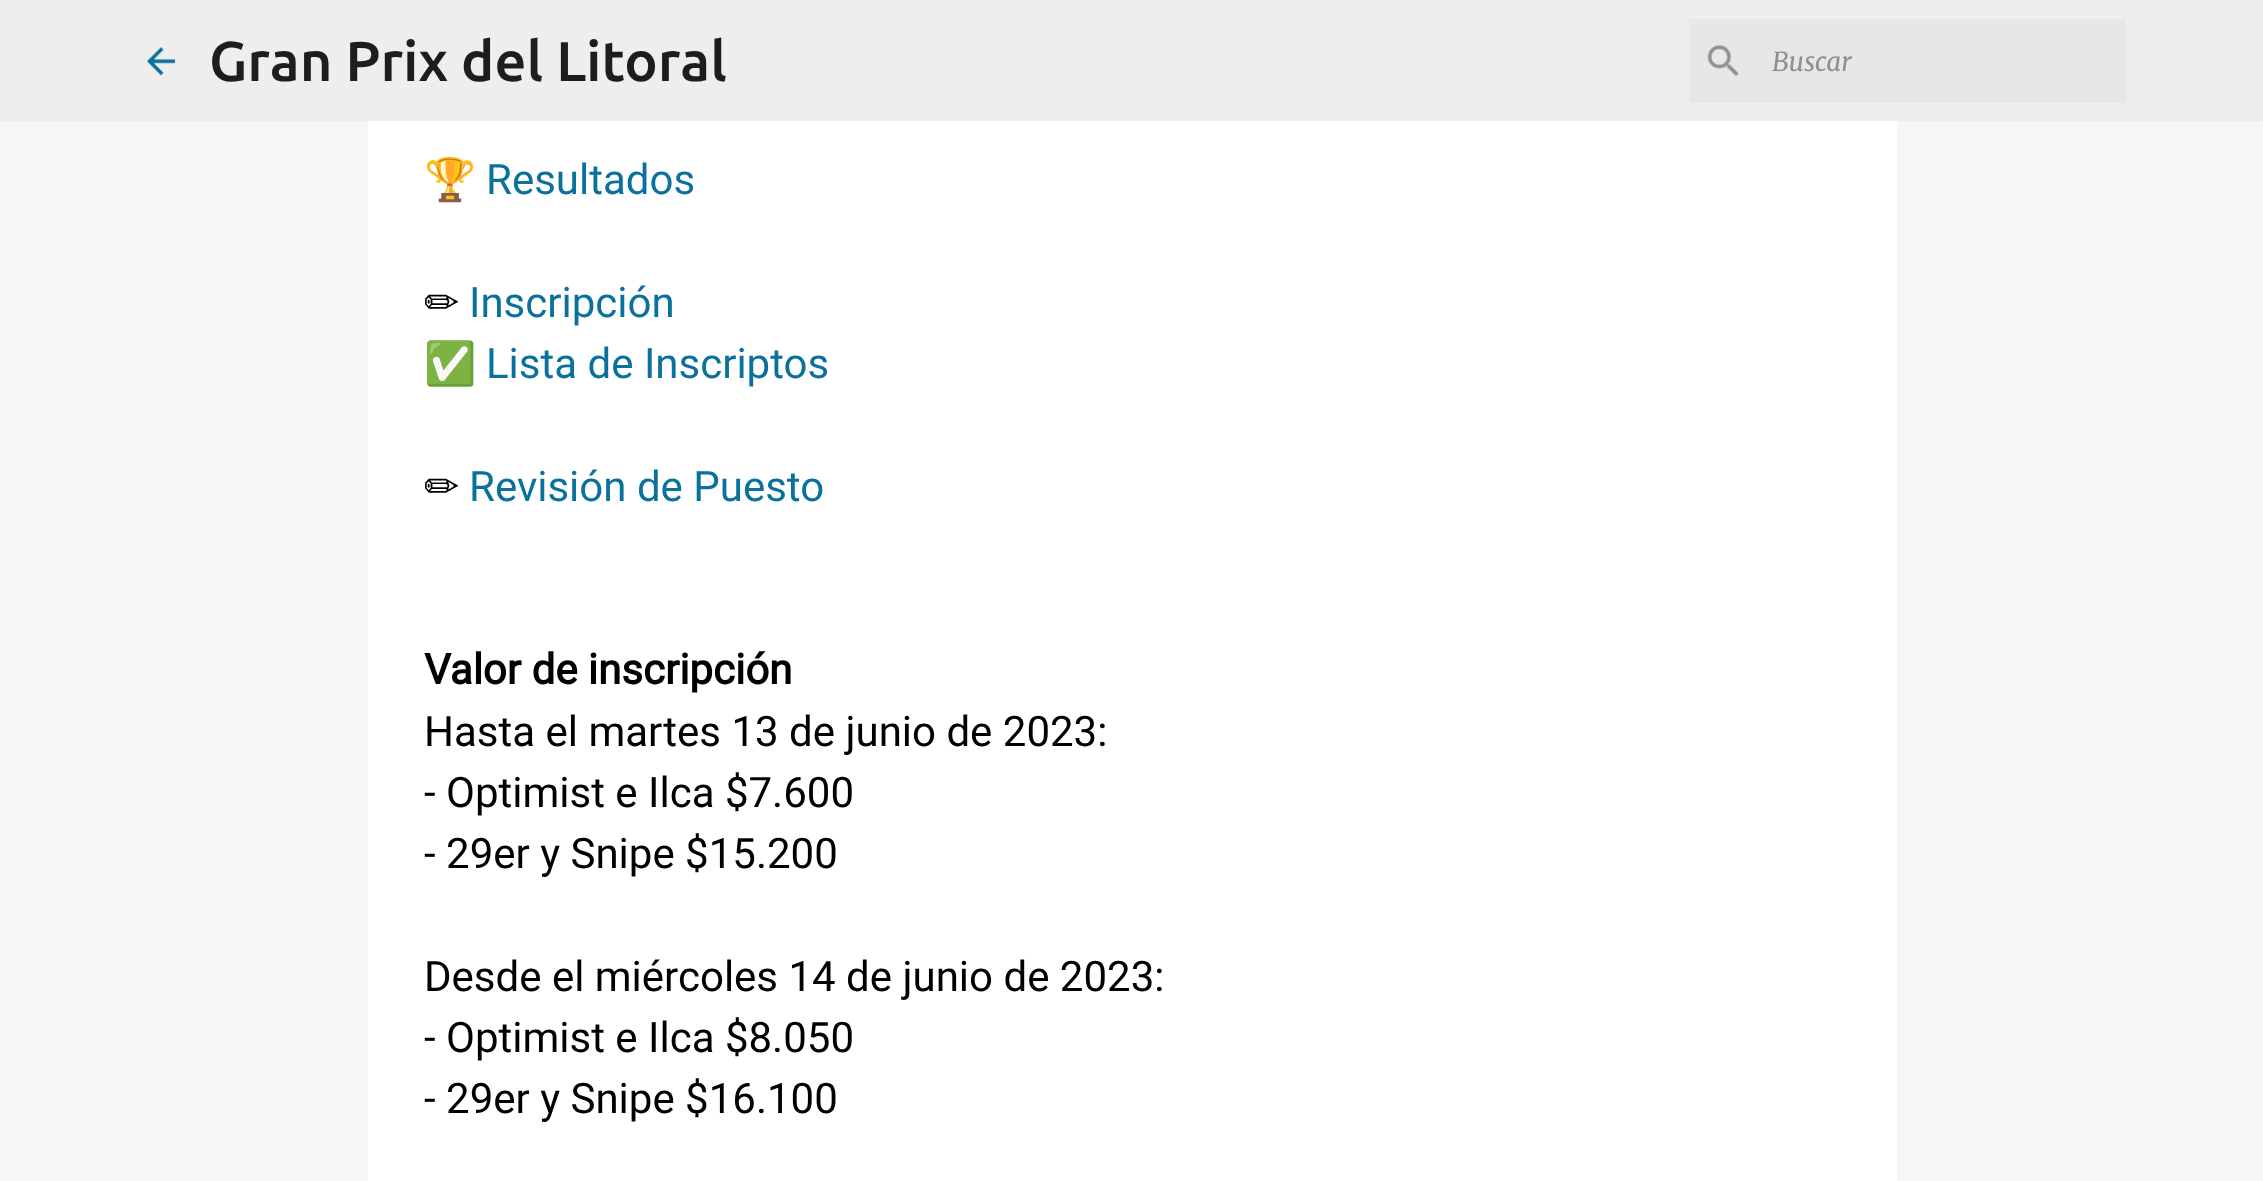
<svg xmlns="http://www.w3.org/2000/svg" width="2263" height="1181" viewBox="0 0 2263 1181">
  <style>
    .t1 { font: 500 56px Ubuntu; fill: #1d1d1d; }
    .t2 { font: italic 26px Merriweather; fill: #8f8f8f; }
    .t3 { font: 42px Noto Color Emoji; fill: #000; }
    .t4 { font: 42px Roboto; fill: #0a719c; }
    .t5 { font: 42px DejaVu Sans; fill: #000; }
    .t6 { font: bold 42px Roboto; fill: #000; }
    .t7 { font: 42px Roboto; fill: #000; }
  </style>
  <rect width="100%" height="100%" fill="#f6f6f6"/>
  <rect x="0" y="0" width="2263" height="121" fill="#eee"/>
  <image x="147" y="47" width="28" height="29" href="images/1.png"/>
  <text x="209" y="81" class="t1">Gran Prix del Litoral</text>
  <rect x="1689" y="19" width="437" height="84" fill="#e7e7e7"/>
  <image x="1707" y="45" width="32" height="32" href="images/2.png"/>
  <text x="1772" y="71" class="t2">Buscar</text>
  <rect x="368" y="121" width="1529" height="1060" fill="#fff"/>
  <text x="424" y="194" class="t3">🏆</text>
  <text x="486" y="194" class="t4">Resultados</text>
  <text x="424" y="317" class="t5">✏</text>
  <text x="469" y="317" class="t4">Inscripción</text>
  <text x="424" y="378" class="t3">✅</text>
  <text x="486" y="378" class="t4">Lista de Inscriptos</text>
  <text x="424" y="501" class="t5">✏</text>
  <text x="469" y="501" class="t4">Revisión de Puesto</text>
  <text x="424" y="684" class="t6">Valor de inscripción</text>
  <text x="424" y="746" class="t7">Hasta el martes 13 de junio de 2023:</text>
  <text x="424" y="807" class="t7">- Optimist e Ilca $7.600</text>
  <text x="424" y="868" class="t7">- 29er y Snipe $15.200</text>
  <text x="424" y="991" class="t7">Desde el miércoles 14 de junio de 2023:</text>
  <text x="424" y="1052" class="t7">- Optimist e Ilca $8.050</text>
  <text x="424" y="1113" class="t7">- 29er y Snipe $16.100</text>
</svg>
